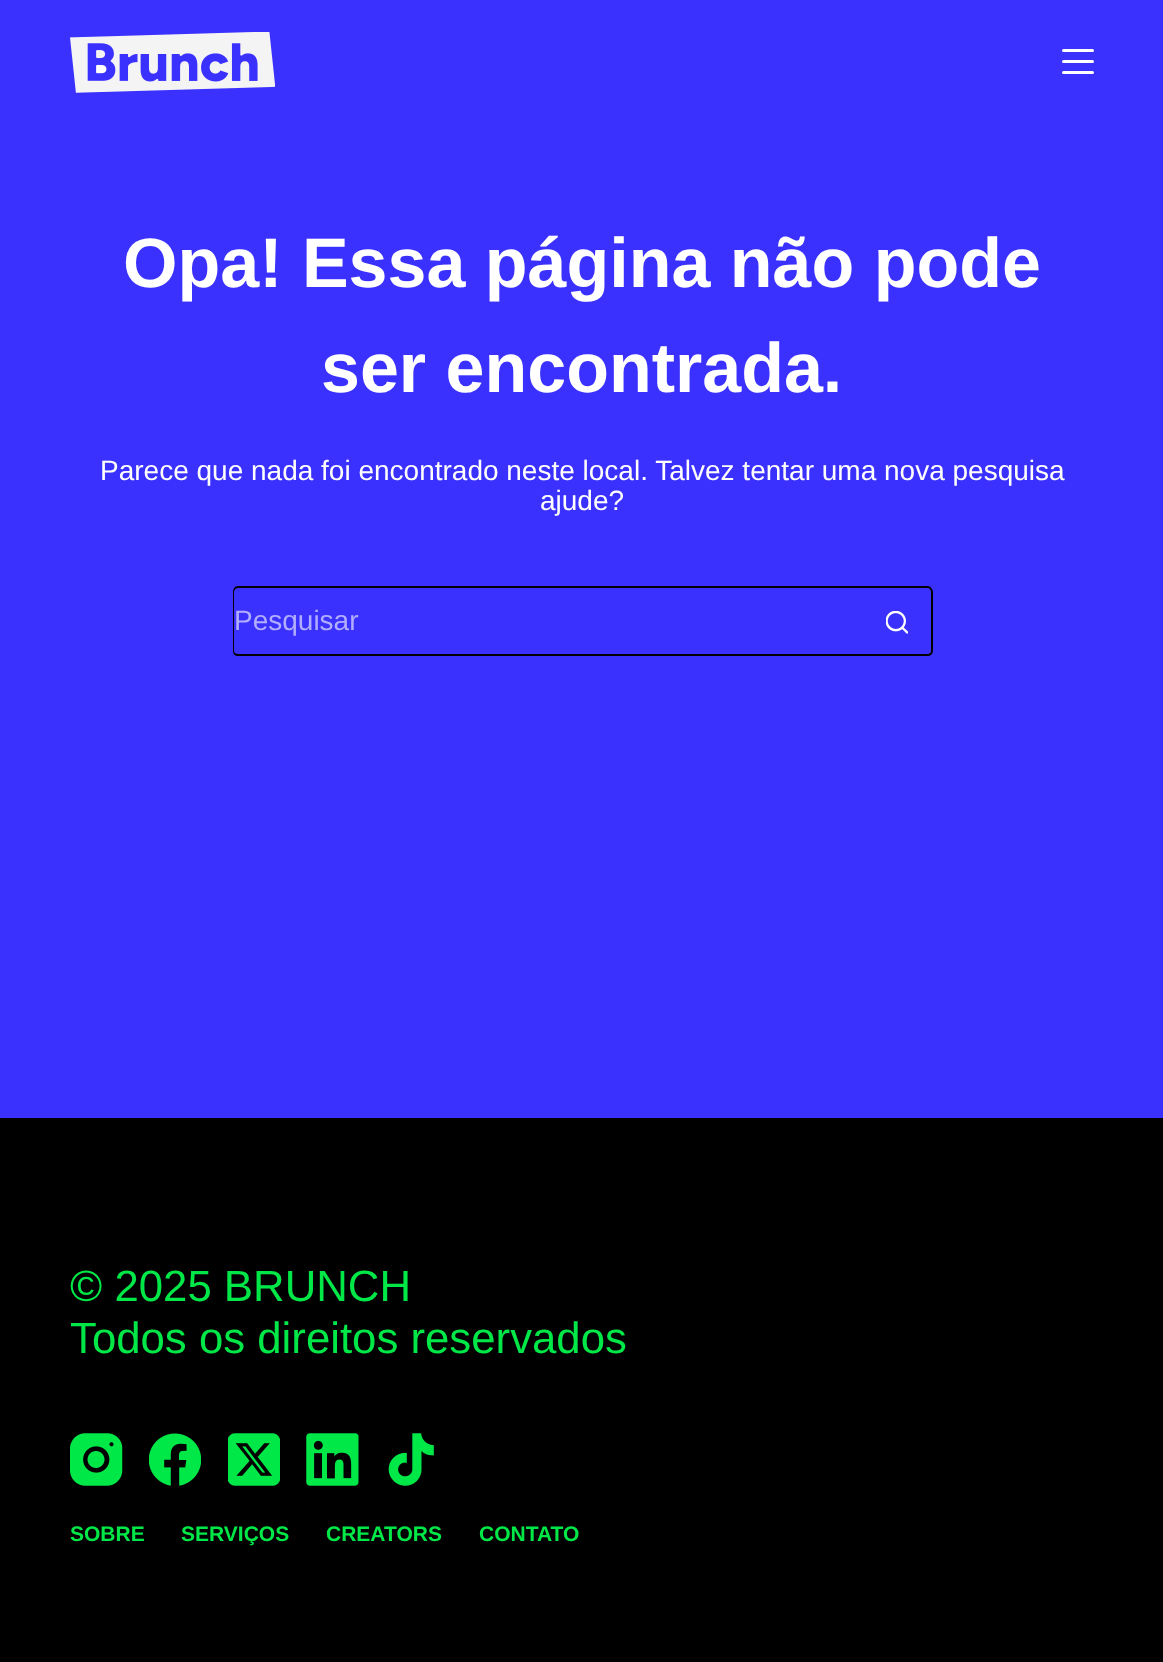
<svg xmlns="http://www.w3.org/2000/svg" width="1163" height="1662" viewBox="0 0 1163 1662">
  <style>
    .t1 { font: bold 70px Liberation Sans; fill: #fff; }
    .t2 { font: 28px Liberation Sans; fill: #fff; }
    .t3 { font: 28px Liberation Sans; fill: #b1adff; }
    .t4 { font: 43.75px Liberation Sans; fill: #00e847; }
    .t5 { font: bold 21px Liberation Sans; fill: #00e847; }
  </style>
  <rect width="100%" height="100%" fill="#3b31ff"/>
  <image x="70" y="32" width="205" height="61" href="images/1.png"/>
  <rect x="1062" y="49" width="32" height="3" rx="1.5" fill="#fff"/>
  <rect x="1062" y="60" width="32" height="3" rx="1.5" fill="#fff"/>
  <rect x="1062" y="71" width="32" height="3" rx="1.5" fill="#fff"/>
  <text x="123" y="287" class="t1">Opa! Essa página não pode</text>
  <text x="321" y="392" class="t1">ser encontrada.</text>
  <text x="100" y="480" class="t2">Parece que nada foi encontrado neste local. Talvez tentar uma nova pesquisa</text>
  <text x="540" y="510" class="t2">ajude?</text>
  <path d="M238 586H863V656H238C235 656 233 654 233 651V592C233 589 235 586 238 586ZM238 588H863V654H238C236 654 234 653 234 651V592C234 590 236 588 238 588Z" fill="#000" fill-rule="evenodd"/>
  <text x="234" y="630" class="t3">Pesquisar</text>
  <path d="M863 586H928C930 586 933 589 933 592V651C933 654 930 656 928 656H863ZM863 588H928C929 588 931 590 931 592V651C931 653 929 654 928 654H863Z" fill="#000" fill-rule="evenodd"/>
  <image x="886" y="611" width="22" height="23" href="images/2.png"/>
  <rect x="0" y="1118" width="1163" height="544" fill="#000"/>
  <text x="70" y="1301" class="t4">© 2025 BRUNCH</text>
  <text x="70" y="1353" class="t4">Todos os direitos reservados</text>
  <image x="70" y="1433" width="53" height="53" href="images/3.png"/>
  <image x="149" y="1433" width="52" height="53" href="images/4.png"/>
  <image x="228" y="1433" width="52" height="53" href="images/5.png"/>
  <image x="306" y="1433" width="53" height="53" href="images/6.png"/>
  <image x="388" y="1433" width="46" height="53" href="images/7.png"/>
  <text x="70" y="1541" class="t5">SOBRE</text>
  <text x="181" y="1541" class="t5">SERVIÇOS</text>
  <text x="326" y="1541" class="t5">CREATORS</text>
  <text x="479" y="1541" class="t5">CONTATO</text>
</svg>
